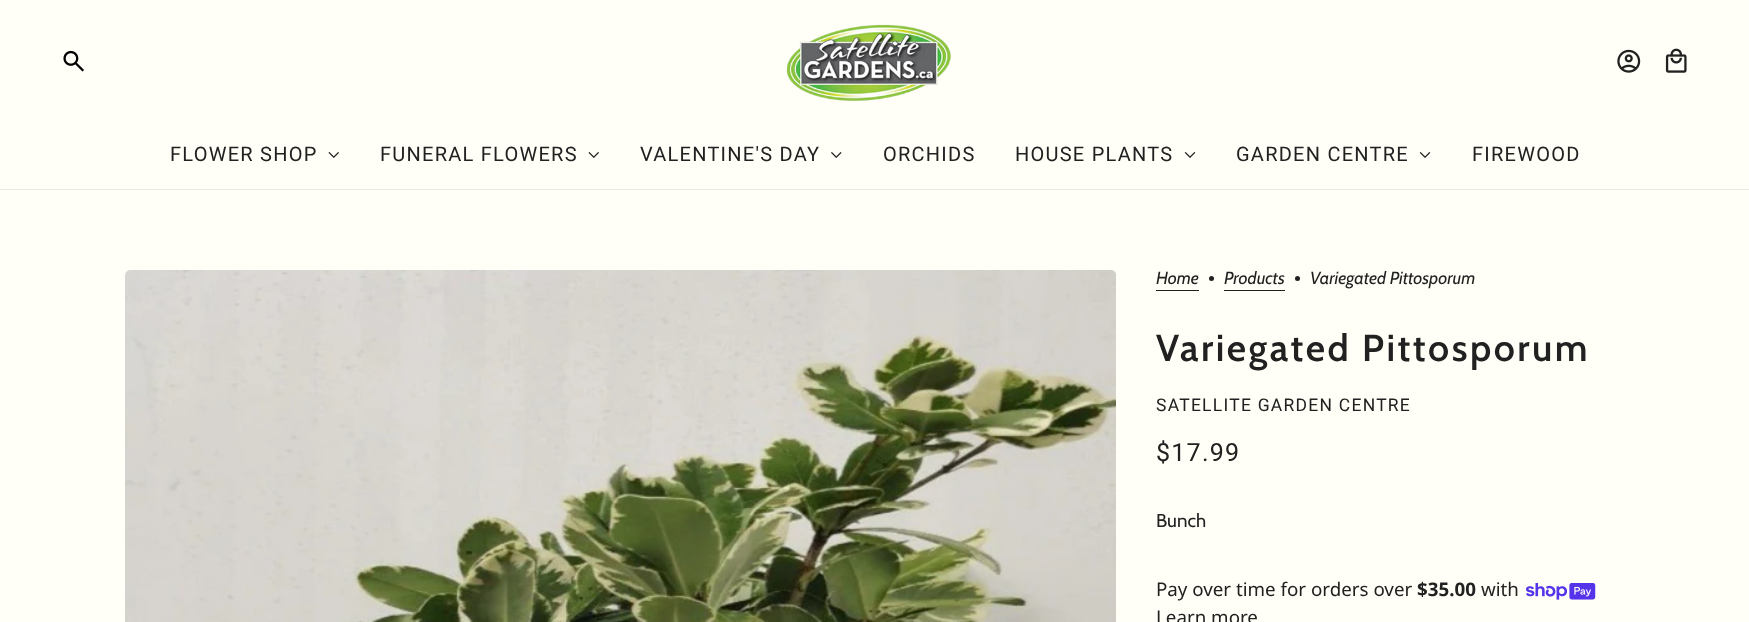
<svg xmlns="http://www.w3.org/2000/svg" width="1749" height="622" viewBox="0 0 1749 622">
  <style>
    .t1 { font: 20px Roboto; letter-spacing: 1.25px; fill: #212121; }
    .t2 { font: italic 17.5px Cabin; fill: #212121; }
    .t3 { font: 600 37.5px Cabin; letter-spacing: 2.5px; fill: #212121; }
    .t4 { font: 17.5px Roboto; letter-spacing: 1.25px; fill: #212121; }
    .t5 { font: 25px Roboto; letter-spacing: 1.25px; fill: #212121; }
    .t6 { font: 18.75px Cabin; fill: #212121; }
    .t7 { font: 18.75px Noto Sans; fill: #212121; }
    .t8 { font: bold 18.75px Noto Sans; fill: #212121; }
  </style>
  <rect width="100%" height="100%" fill="#fffff7"/>
  <image x="63" y="50" width="21" height="22" href="images/1.png"/>
  <image x="786" y="24" width="165" height="77" href="images/2.png"/>
  <image x="1617" y="49" width="24" height="24" href="images/3.png"/>
  <image x="1665" y="48" width="22" height="25" href="images/4.png"/>
  <text x="170" y="161" class="t1">FLOWER SHOP</text>
  <image x="328" y="152" width="11" height="6" href="images/5.png"/>
  <text x="380" y="161" class="t1">FUNERAL FLOWERS</text>
  <image x="588" y="152" width="11" height="6" href="images/5.png"/>
  <text x="640" y="161" class="t1">VALENTINE'S DAY</text>
  <image x="831" y="152" width="11" height="6" href="images/6.png"/>
  <text x="883" y="161" class="t1">ORCHIDS</text>
  <text x="1015" y="161" class="t1">HOUSE PLANTS</text>
  <image x="1184" y="152" width="12" height="6" href="images/7.png"/>
  <text x="1236" y="161" class="t1">GARDEN CENTRE</text>
  <image x="1419" y="152" width="12" height="6" href="images/7.png"/>
  <text x="1472" y="161" class="t1">FIREWOOD</text>
  <rect x="0" y="189" width="1749" height="1" fill="#e9e9e2"/>
  <image x="125" y="270" width="991" height="352" href="images/8.png"/>
  <text x="1156" y="284" class="t2">Home</text>
  <rect x="1156" y="290" width="43" height="1" fill="#212121"/>
  <circle cx="1211.5" cy="278.5" r="2.5" fill="#212121"/>
  <text x="1224" y="284" class="t2">Products</text>
  <rect x="1224" y="290" width="61" height="1" fill="#212121"/>
  <circle cx="1297.5" cy="278.5" r="2.5" fill="#212121"/>
  <text x="1310" y="284" class="t2">Variegated Pittosporum</text>
  <text x="1156" y="361" class="t3">Variegated Pittosporum</text>
  <text x="1156" y="411" class="t4">SATELLITE GARDEN CENTRE</text>
  <text x="1156" y="461" class="t5">$17.99</text>
  <text x="1156" y="527" class="t6">Bunch</text>
  <text x="1156" y="596" class="t7">Pay over time for orders over</text>
  <text x="1417" y="596" class="t8">$35.00</text>
  <text x="1481" y="596" class="t7">with</text>
  <image x="1526" y="583" width="70" height="17" href="images/9.png"/>
  <text x="1156" y="624" class="t7">Learn more</text>
</svg>
